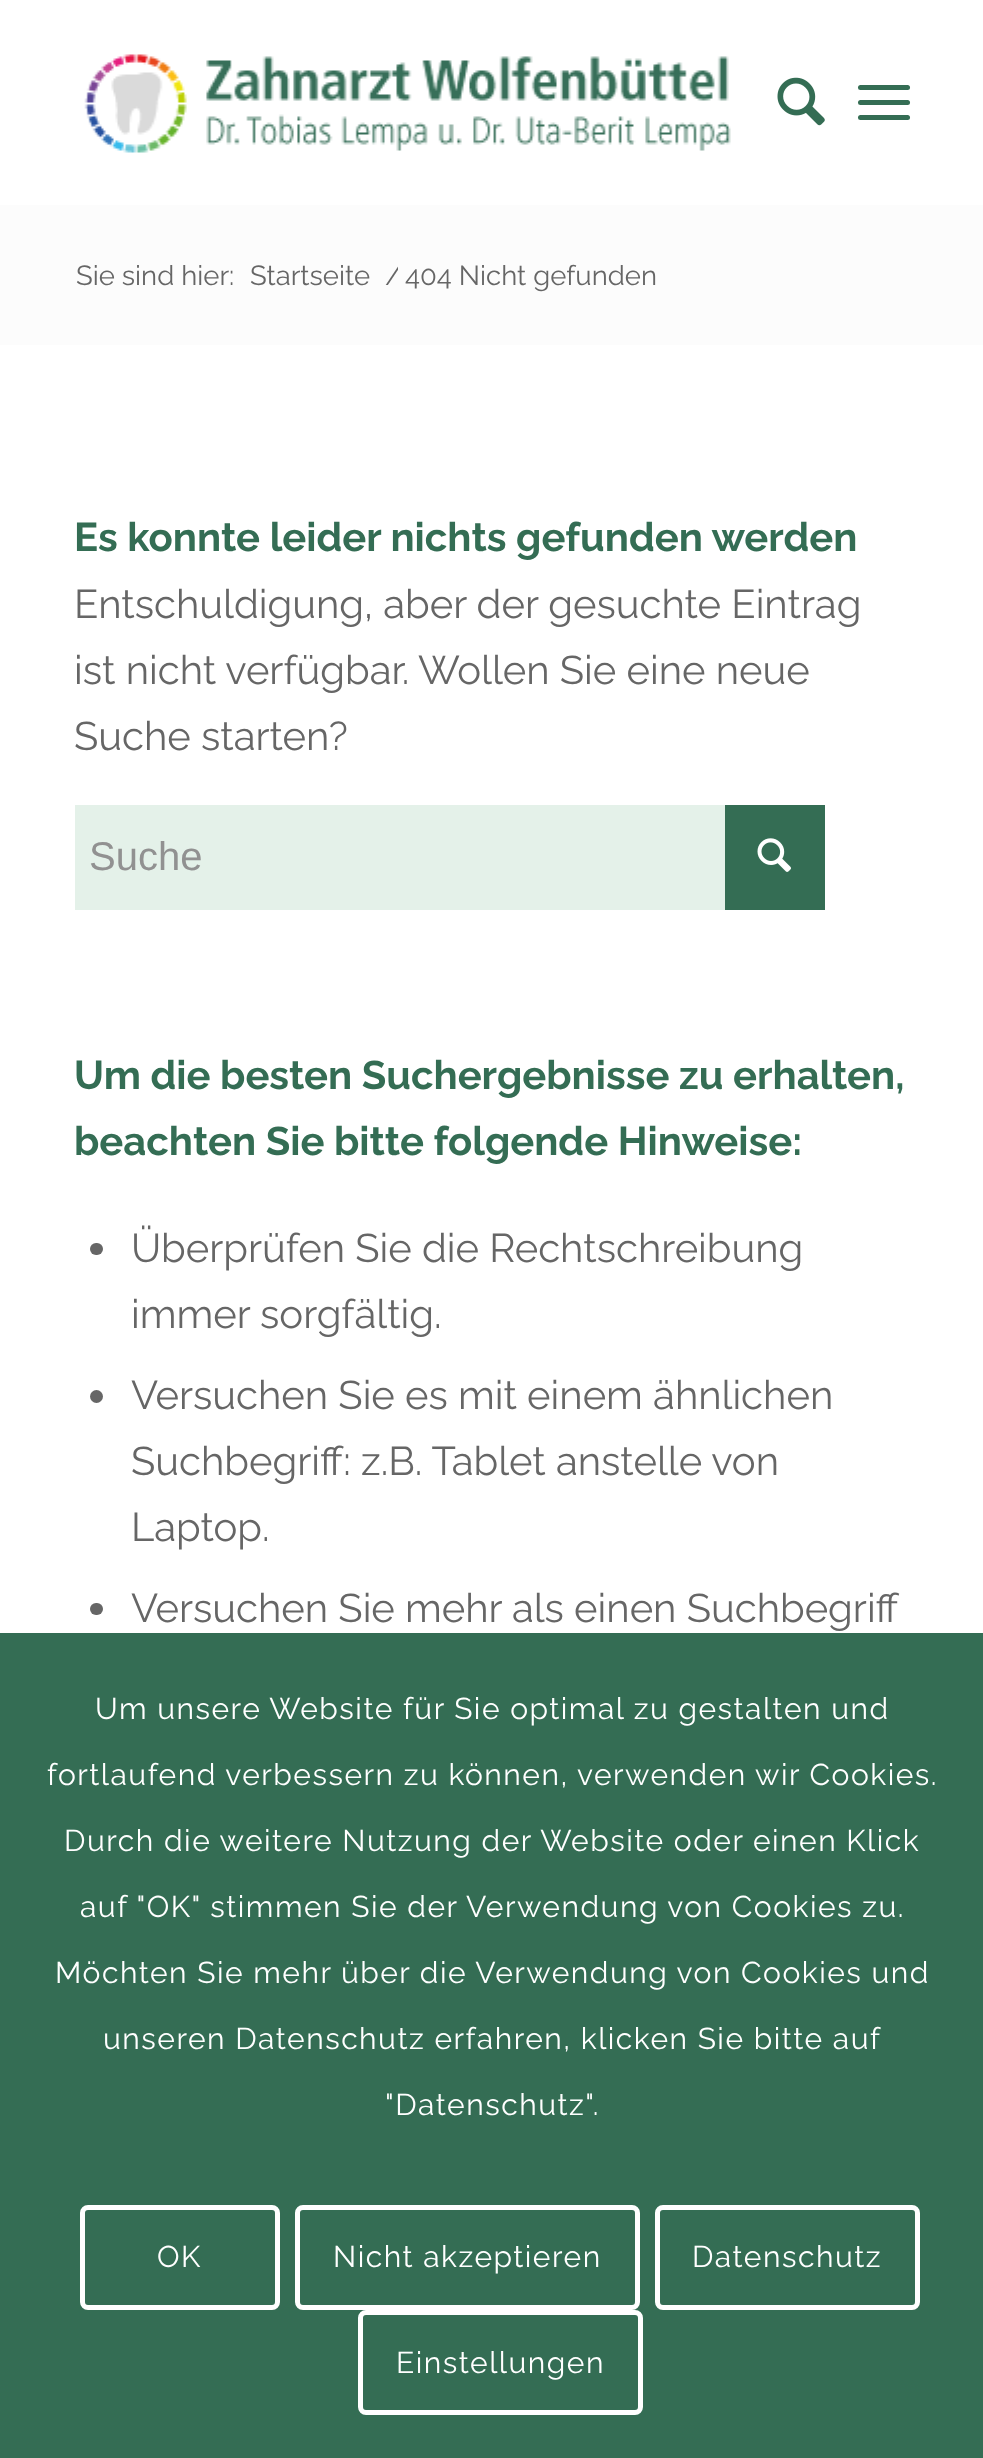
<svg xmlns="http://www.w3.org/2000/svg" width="983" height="2458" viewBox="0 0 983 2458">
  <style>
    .t1 { font: 27.5px Raleway; fill: #666; }
    .t2 { font: bold 40px Raleway; fill: #346d54; }
    .t3 { font: 40px Raleway; fill: #666; }
    .t4 { font: 40px Liberation Sans; fill: #919191; }
    .t5 { font: 30px Raleway; letter-spacing: 1.5px; fill: #fff; }
  </style>
  <defs>
    <clipPath id="clip1"><rect x="378" y="258" width="20" height="37"/></clipPath>
  </defs>
  <rect width="100%" height="100%" fill="#fff"/>
  <image x="84" y="54" width="647" height="99" href="images/1.png"/>
  <image x="777" y="77" width="48" height="49" href="images/2.png"/>
  <rect x="858" y="100" width="52" height="5" rx="2.5" fill="#346d54"/>
  <rect x="858" y="85" width="52" height="5" rx="2.5" fill="#346d54"/>
  <rect x="858" y="115" width="52" height="5" rx="2.5" fill="#346d54"/>
  <rect x="0" y="205" width="983" height="140" fill="#fcfcfc"/>
  <text x="76" y="285" class="t1">Sie sind hier:</text>
  <text x="250" y="285" class="t1">Startseite</text>
  <g clip-path="url(#clip1)">
    <text x="385" y="285" class="t1">/</text>
  </g>
  <text x="405" y="285" class="t1">404 Nicht gefunden</text>
  <text x="74" y="551" class="t2">Es konnte leider nichts gefunden werden</text>
  <text x="74" y="618" class="t3">Entschuldigung, aber der gesuchte Eintrag</text>
  <text x="74" y="684" class="t3">ist nicht verfügbar. Wollen Sie eine neue</text>
  <text x="74" y="750" class="t3">Suche starten?</text>
  <rect x="75" y="805" width="650" height="105" fill="#e4f1e9"/>
  <text x="89" y="870" class="t4">Suche</text>
  <rect x="725" y="805" width="100" height="105" fill="#346d54"/>
  <image x="757" y="838" width="34" height="34" href="images/3.png"/>
  <text x="74" y="1089" class="t2">Um die besten Suchergebnisse zu erhalten,</text>
  <text x="74" y="1155" class="t2">beachten Sie bitte folgende Hinweise:</text>
  <rect x="90" y="1243" width="13" height="12" rx="6" fill="#666"/>
  <text x="131" y="1262" class="t3">Überprüfen Sie die Rechtschreibung</text>
  <text x="131" y="1328" class="t3">immer sorgfältig.</text>
  <circle cx="96.5" cy="1396.5" r="6.5" fill="#666"/>
  <text x="131" y="1409" class="t3">Versuchen Sie es mit einem ähnlichen</text>
  <text x="131" y="1475" class="t3">Suchbegriff: z.B. Tablet anstelle von</text>
  <text x="131" y="1541" class="t3">Laptop.</text>
  <rect x="90" y="1603" width="13" height="12" rx="6" fill="#666"/>
  <text x="131" y="1622" class="t3">Versuchen Sie mehr als einen Suchbegriff</text>
  <rect x="0" y="1633" width="983" height="825" fill="#346d54"/>
  <text x="95" y="1719" class="t5">Um unsere Website für Sie optimal zu gestalten und</text>
  <text x="47" y="1785" class="t5">fortlaufend verbessern zu können, verwenden wir Cookies.</text>
  <text x="64" y="1851" class="t5">Durch die weitere Nutzung der Website oder einen Klick</text>
  <text x="80" y="1917" class="t5">auf "OK" stimmen Sie der Verwendung von Cookies zu.</text>
  <text x="55" y="1983" class="t5">Möchten Sie mehr über die Verwendung von Cookies und</text>
  <text x="103" y="2049" class="t5">unseren Datenschutz erfahren, klicken Sie bitte auf</text>
  <text x="385" y="2115" class="t5">"Datenschutz".</text>
  <rect x="82.5" y="2207.5" width="195" height="100" rx="5.5" fill="none" stroke="#fff" stroke-width="5"/>
  <text x="157" y="2267" class="t5">OK</text>
  <rect x="297.5" y="2207.5" width="340" height="100" rx="5.5" fill="none" stroke="#fff" stroke-width="5"/>
  <text x="333" y="2267" class="t5">Nicht akzeptieren</text>
  <rect x="657.5" y="2207.5" width="260" height="100" rx="5.5" fill="none" stroke="#fff" stroke-width="5"/>
  <text x="692" y="2267" class="t5">Datenschutz</text>
  <rect x="360.5" y="2312.5" width="280" height="100" rx="5.5" fill="none" stroke="#fff" stroke-width="5"/>
  <text x="396" y="2373" class="t5">Einstellungen</text>
</svg>
